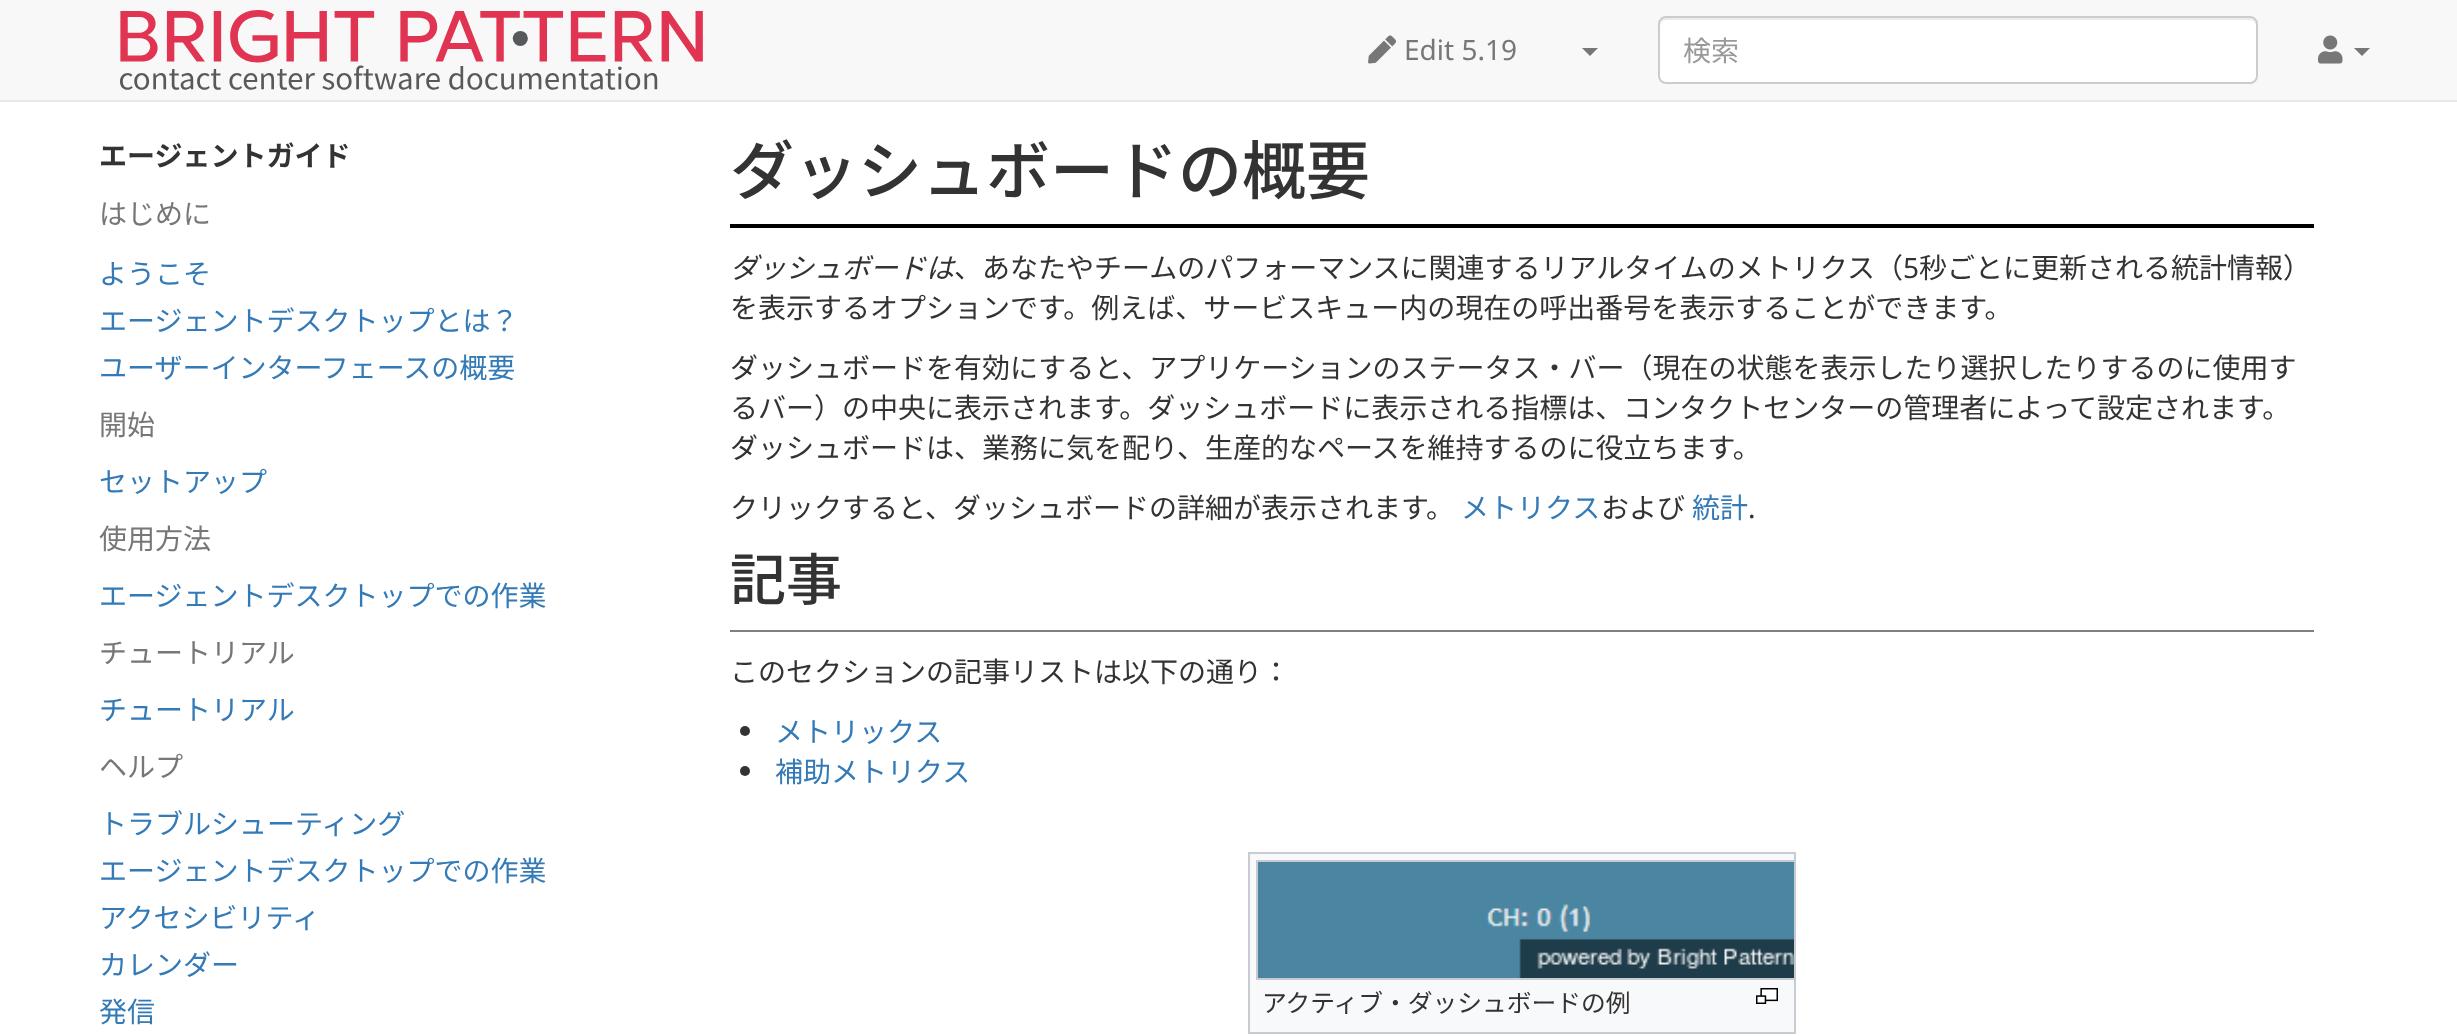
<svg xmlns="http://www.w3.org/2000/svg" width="2457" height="1036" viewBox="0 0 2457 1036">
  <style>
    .t1 { font: 28px Noto Sans; fill: #777; }
    .t2 { font: 28px Noto Sans CJK JP; fill: #999; }
    .t3 { font: bold 28px Noto Sans CJK JP; fill: #333; }
    .t4 { font: 28px Noto Sans CJK JP; fill: #777; }
    .t5 { font: 28px Noto Sans CJK JP; fill: #337ab7; }
    .t6 { font: 500 64px Noto Sans CJK JP; fill: #333; }
    .t7 { font: italic 28px Noto Sans CJK JP; fill: #333; }
    .t8 { font: 28px Noto Sans CJK JP; fill: #333; }
    .t9 { font: 28px Noto Sans; fill: #333; }
    .t10 { font: 500 56px Noto Sans CJK JP; fill: #333; }
    .t11 { font: 24.75px Noto Sans CJK JP; fill: #333; }
  </style>
  <defs>
    <clipPath id="clip1"><rect x="1250" y="854" width="544" height="178"/></clipPath>
  </defs>
  <rect width="100%" height="100%" fill="#fff"/>
  <rect x="0" y="0" width="2457" height="100" fill="#f8f8f8"/>
  <rect x="0" y="100" width="2457" height="2" fill="#e7e7e7"/>
  <image x="120" y="10" width="583" height="80" href="images/1.png"/>
  <image x="1368" y="35" width="28" height="29" href="images/2.png"/>
  <text x="1404" y="60" class="t1">Edit 5.19</text>
  <path d="M1582 48H1598L1590 56Z" fill="#777"/>
  <rect x="1658" y="16" width="600" height="68" rx="8" fill="#fff"/>
  <path d="M1666 20H2250C2253 20 2256 23 2256 26V24C2256 21 2253 18 2250 18H1666C1663 18 1660 21 1660 24V26C1660 23 1663 20 1666 20Z" fill="#ececec"/>
  <rect x="1659" y="17" width="598" height="66" rx="7" fill="none" stroke="#ccc" stroke-width="2"/>
  <text x="1683" y="61" class="t2">検索</text>
  <image x="2318" y="35" width="25" height="29" href="images/3.png"/>
  <path d="M2354 48H2370L2362 56Z" fill="#777"/>
  <text x="99" y="166" class="t3">エージェントガイド</text>
  <text x="99" y="224" class="t4">はじめに</text>
  <text x="99" y="284" class="t5">ようこそ</text>
  <text x="99" y="331" class="t5">エージェントデスクトップとは？</text>
  <text x="99" y="378" class="t5">ユーザーインターフェースの概要</text>
  <text x="99" y="435" class="t4">開始</text>
  <text x="99" y="492" class="t5">セットアップ</text>
  <text x="99" y="549" class="t4">使用方法</text>
  <text x="99" y="606" class="t5">エージェントデスクトップでの作業</text>
  <text x="99" y="663" class="t4">チュートリアル</text>
  <text x="99" y="720" class="t5">チュートリアル</text>
  <text x="99" y="777" class="t4">ヘルプ</text>
  <text x="99" y="834" class="t5">トラブルシューティング</text>
  <text x="99" y="881" class="t5">エージェントデスクトップでの作業</text>
  <text x="99" y="928" class="t5">アクセシビリティ</text>
  <text x="99" y="975" class="t5">カレンダー</text>
  <text x="99" y="1022" class="t5">発信</text>
  <rect x="730" y="224" width="1584" height="4" fill="#000"/>
  <text x="730" y="194" class="t6">ダッシュボードの概要</text>
  <text x="730" y="278" class="t7">ダッシュボードは</text>
  <text x="954" y="278" class="t8">、あなたやチームのパフォーマンスに関連するリアルタイムのメトリクス（</text>
  <text x="1903" y="278" class="t9">5</text>
  <text x="1919" y="278" class="t8">秒ごとに更新される統計情報）</text>
  <text x="730" y="318" class="t8">を表示するオプションです。例えば、サービスキュー内の現在の呼出番号を表示することができます。</text>
  <text x="730" y="378" class="t8">ダッシュボードを有効にすると、アプリケーションのステータス・バー（現在の状態を表示したり選択したりするのに使用す</text>
  <text x="730" y="418" class="t8">るバー）の中央に表示されます。ダッシュボードに表示される指標は、コンタクトセンターの管理者によって設定されます。</text>
  <text x="730" y="458" class="t8">ダッシュボードは、業務に気を配り、生産的なペースを維持するのに役立ちます。</text>
  <text x="730" y="518" class="t8">クリックすると、ダッシュボードの詳細が表示されます。</text>
  <text x="1461" y="518" class="t5">メトリクス</text>
  <text x="1601" y="518" class="t8">および</text>
  <text x="1692" y="518" class="t5">統計</text>
  <text x="1748" y="518" class="t9">.</text>
  <rect x="730" y="630" width="1584" height="2" fill="#808080"/>
  <text x="730" y="600" class="t10">記事</text>
  <text x="730" y="682" class="t8">このセクションの記事リストは以下の通り：</text>
  <circle cx="745" cy="731" r="5" fill="#333"/>
  <text x="775" y="742" class="t5">メトリックス</text>
  <circle cx="745" cy="771" r="5" fill="#333"/>
  <text x="775" y="782" class="t5">補助メトリクス</text>
  <rect x="1249" y="853" width="546" height="180" fill="#f8f9fa" stroke="#c8ccd1" stroke-width="2"/>
  <g clip-path="url(#clip1)">
    <rect x="1257" y="861" width="542" height="118" fill="none" stroke="#c8ccd1" stroke-width="2"/>
  </g>
  <image x="1258" y="862" width="536" height="116" href="images/4.png"/>
  <text x="1262" y="1012" class="t11">アクティブ・ダッシュボードの例</text>
  <image x="1756" y="988" width="22" height="16" href="images/5.png"/>
</svg>
